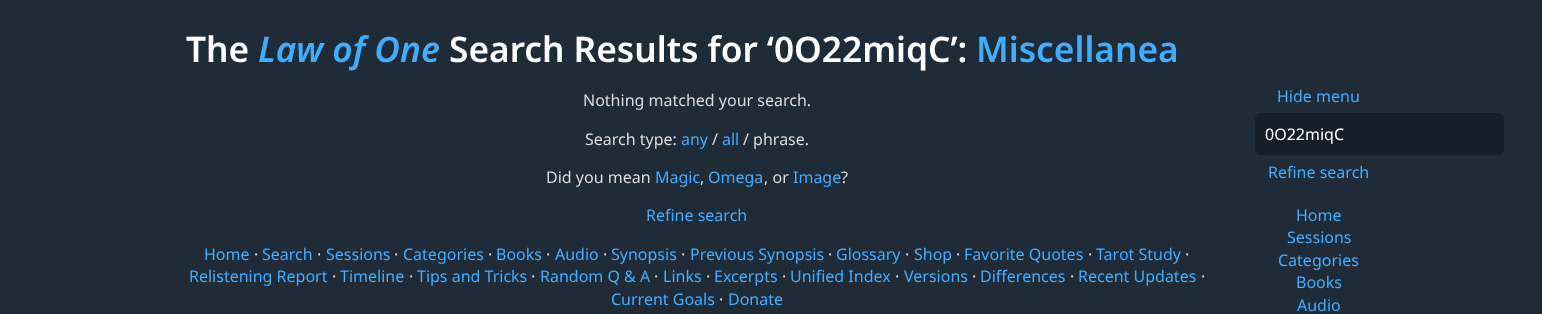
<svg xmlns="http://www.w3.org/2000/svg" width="1542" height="314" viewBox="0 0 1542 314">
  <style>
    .t1 { font: 600 35.25px Noto Sans; fill: #fff; }
    .t2 { font: italic 600 35.25px Noto Sans; fill: #41adff; }
    .t3 { font: 600 35.25px Noto Sans; fill: #41adff; }
    .t4 { font: 16px Noto Sans; fill: #dbdbdb; }
    .t5 { font: 16px Noto Sans; fill: #41adff; }
    .t6 { font: 16px Noto Sans; fill: #fff; }
  </style>
  <rect width="100%" height="100%" fill="#202b38"/>
  <text x="186" y="62" class="t1">The</text>
  <text x="258" y="62" class="t2">Law of One</text>
  <text x="449" y="62" class="t1">Search Results for ‘0O22miqC’:</text>
  <text x="976" y="62" class="t3">Miscellanea</text>
  <text x="583" y="106" class="t4">Nothing matched your search.</text>
  <text x="1277" y="102" class="t5">Hide menu</text>
  <rect x="1255" y="113" width="249" height="42" rx="6" fill="#161f27"/>
  <text x="1265" y="140" class="t6">0O22miqC</text>
  <text x="1268" y="178" class="t5">Refine search</text>
  <text x="1296" y="221" class="t5">Home</text>
  <text x="1287" y="243" class="t5">Sessions</text>
  <text x="1278" y="266" class="t5">Categories</text>
  <text x="1296" y="288" class="t5">Books</text>
  <text x="1297" y="311" class="t5">Audio</text>
  <text x="585" y="145" class="t4">Search type:</text>
  <text x="681" y="145" class="t5">any</text>
  <text x="712" y="145" class="t4">/</text>
  <text x="722" y="145" class="t5">all</text>
  <text x="743" y="145" class="t4">/ phrase.</text>
  <text x="546" y="183" class="t4">Did you mean</text>
  <text x="655" y="183" class="t5">Magic</text>
  <text x="700" y="183" class="t4">,</text>
  <text x="708" y="183" class="t5">Omega</text>
  <text x="764" y="183" class="t4">, or</text>
  <text x="793" y="183" class="t5">Image</text>
  <text x="841" y="183" class="t4">?</text>
  <text x="646" y="221" class="t5">Refine search</text>
  <text x="204" y="260" class="t5">Home</text>
  <text x="254" y="260" class="t4">·</text>
  <text x="262" y="260" class="t5">Search</text>
  <text x="317" y="260" class="t4">·</text>
  <text x="326" y="260" class="t5">Sessions</text>
  <text x="394" y="260" class="t4">·</text>
  <text x="403" y="260" class="t5">Categories</text>
  <text x="488" y="260" class="t4">·</text>
  <text x="496" y="260" class="t5">Books</text>
  <text x="546" y="260" class="t4">·</text>
  <text x="555" y="260" class="t5">Audio</text>
  <text x="603" y="260" class="t4">·</text>
  <text x="611" y="260" class="t5">Synopsis</text>
  <text x="681" y="260" class="t4">·</text>
  <text x="690" y="260" class="t5">Previous Synopsis</text>
  <text x="828" y="260" class="t4">·</text>
  <text x="836" y="260" class="t5">Glossary</text>
  <text x="905" y="260" class="t4">·</text>
  <text x="914" y="260" class="t5">Shop</text>
  <text x="956" y="260" class="t4">·</text>
  <text x="964" y="260" class="t5">Favorite Quotes</text>
  <text x="1088" y="260" class="t4">·</text>
  <text x="1096" y="260" class="t5">Tarot Study</text>
  <text x="1185" y="260" class="t4">·</text>
  <text x="189" y="282" class="t5">Relistening Report</text>
  <text x="332" y="282" class="t4">·</text>
  <text x="340" y="282" class="t5">Timeline</text>
  <text x="409" y="282" class="t4">·</text>
  <text x="417" y="282" class="t5">Tips and Tricks</text>
  <text x="531" y="282" class="t4">·</text>
  <text x="540" y="282" class="t5">Random Q &amp; A</text>
  <text x="654" y="282" class="t4">·</text>
  <text x="663" y="282" class="t5">Links</text>
  <text x="706" y="282" class="t4">·</text>
  <text x="714" y="282" class="t5">Excerpts</text>
  <text x="782" y="282" class="t4">·</text>
  <text x="790" y="282" class="t5">Unified Index</text>
  <text x="895" y="282" class="t4">·</text>
  <text x="904" y="282" class="t5">Versions</text>
  <text x="972" y="282" class="t4">·</text>
  <text x="980" y="282" class="t5">Differences</text>
  <text x="1070" y="282" class="t4">·</text>
  <text x="1078" y="282" class="t5">Recent Updates</text>
  <text x="1201" y="282" class="t4">·</text>
  <text x="611" y="305" class="t5">Current Goals</text>
  <text x="719" y="305" class="t4">·</text>
  <text x="728" y="305" class="t5">Donate</text>
</svg>
